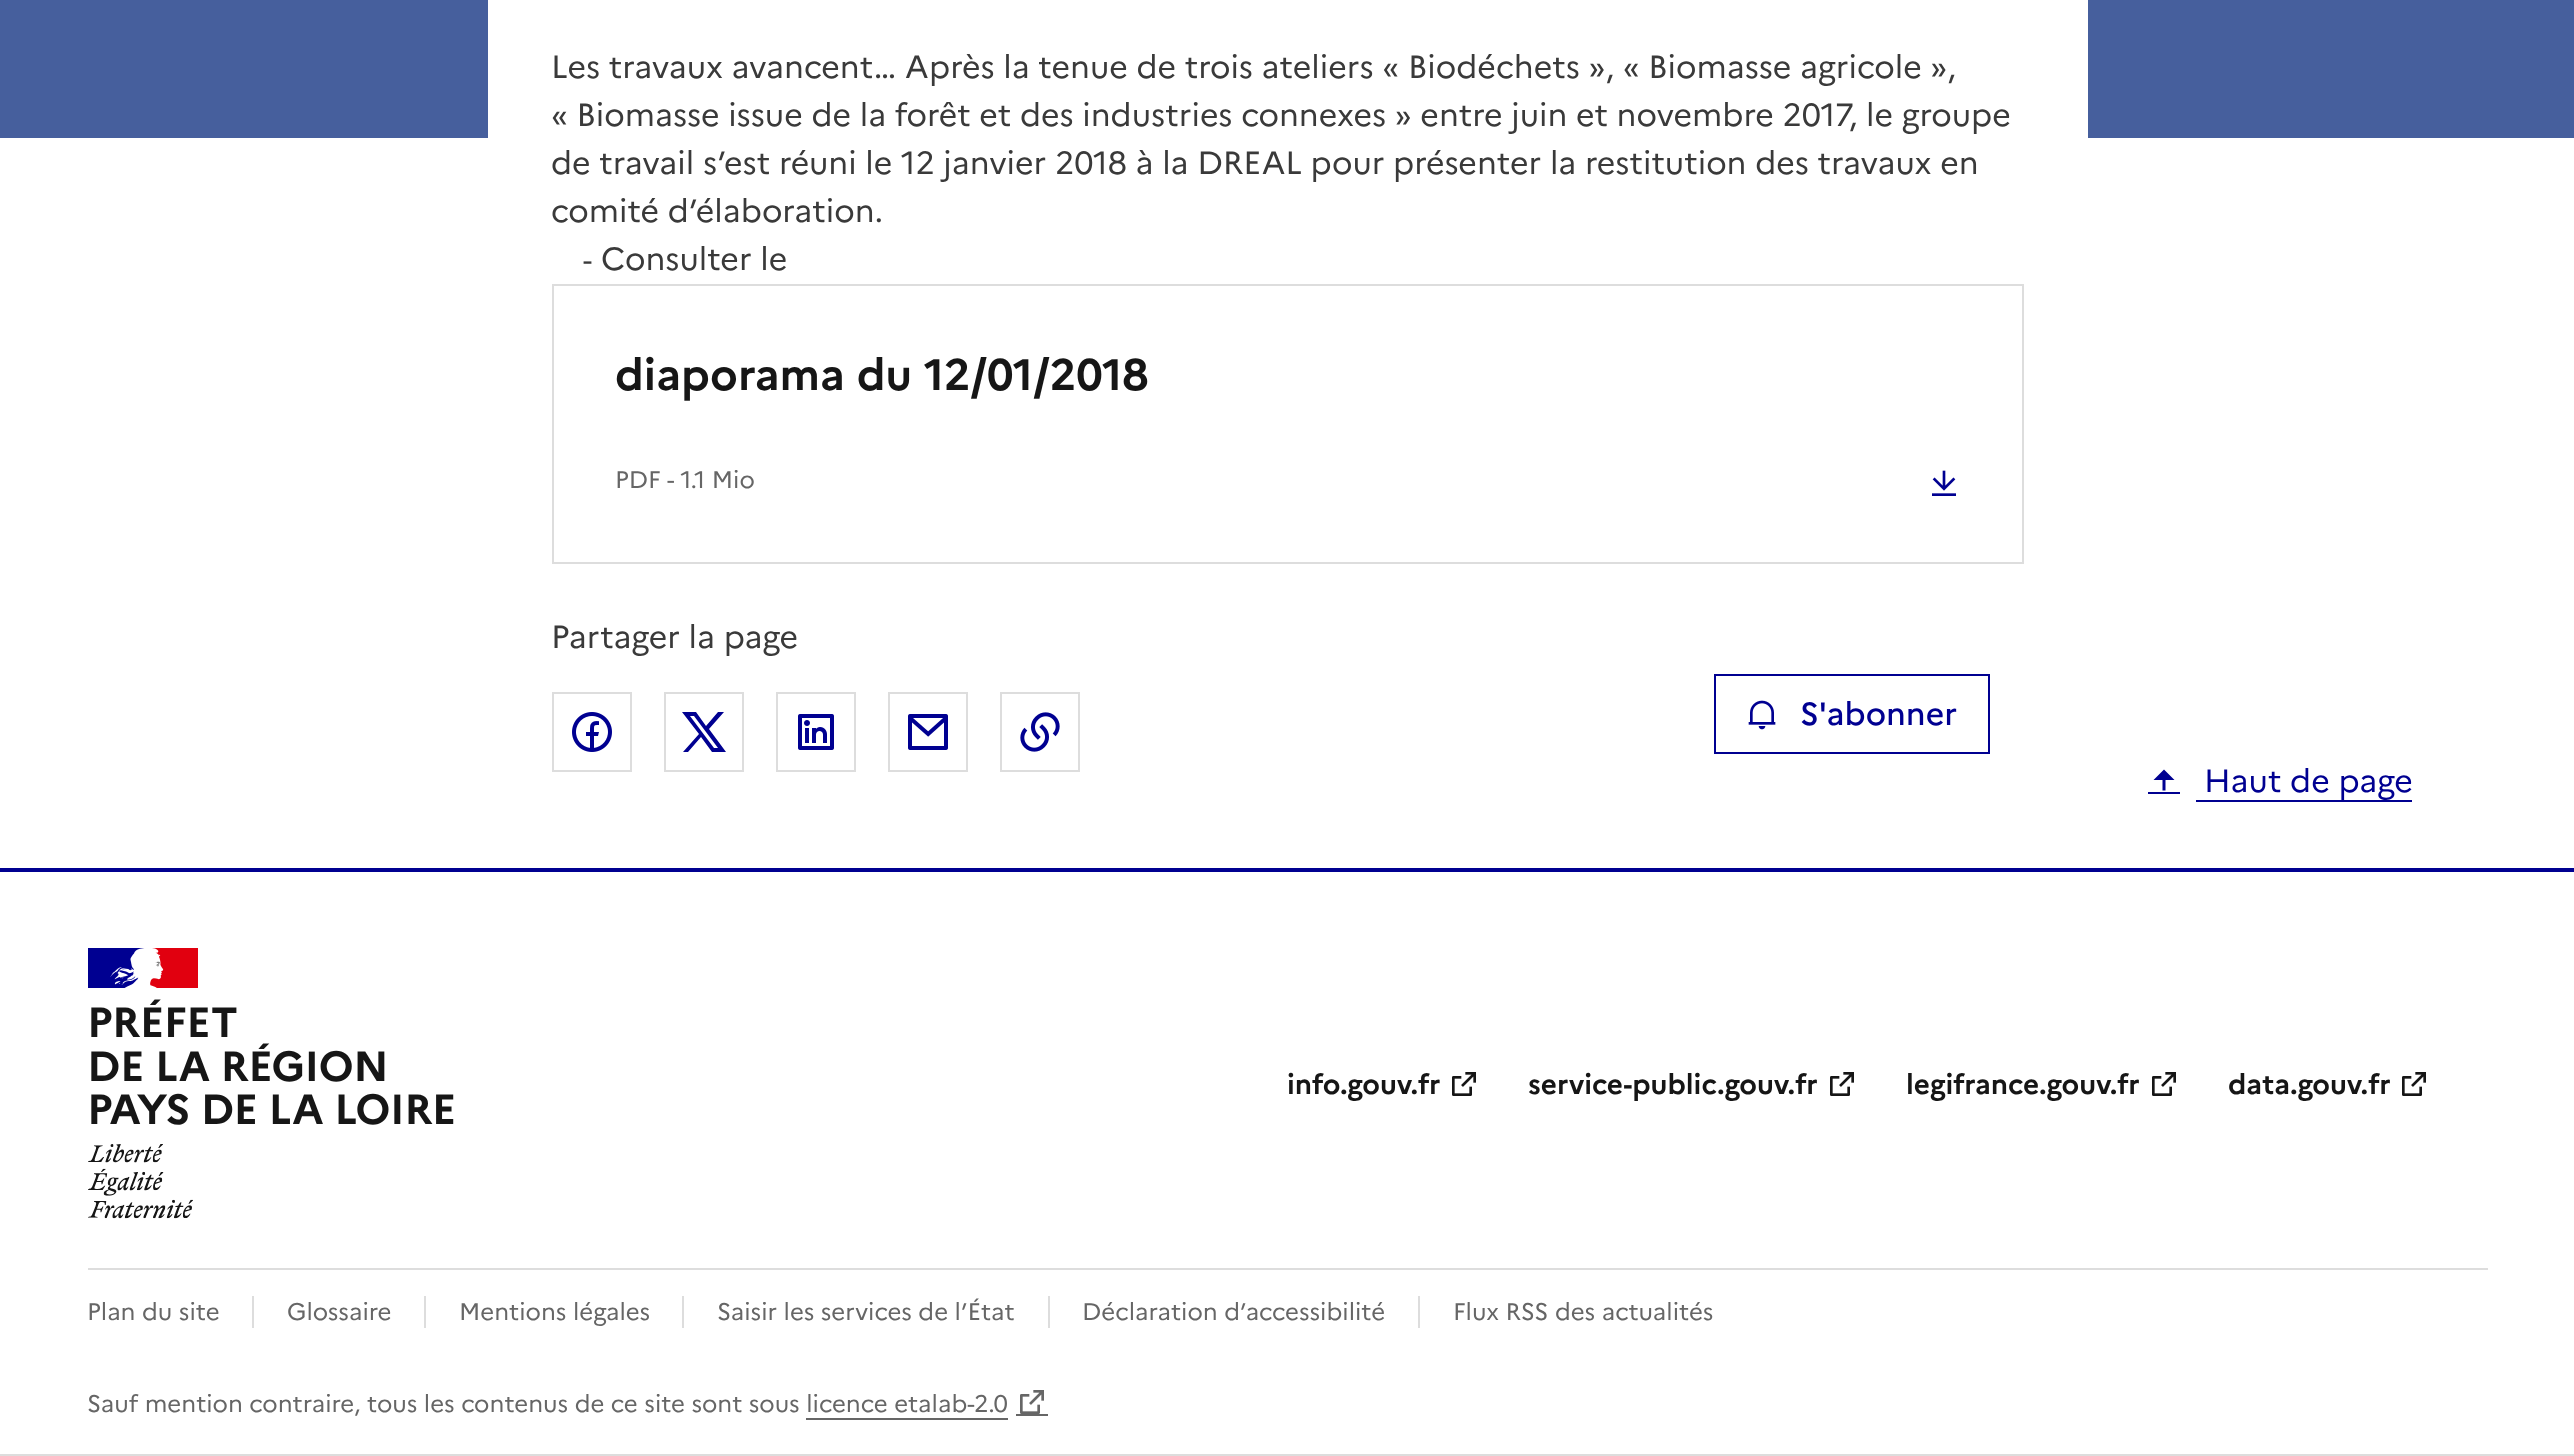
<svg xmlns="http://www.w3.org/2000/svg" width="2574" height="1456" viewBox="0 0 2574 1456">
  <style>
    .t1 { font: 32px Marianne; fill: #3a3a3a; }
    .t2 { font: 29px Marianne; fill: #3a3a3a; }
    .t3 { font: bold 44px Marianne; fill: #161616; }
    .t4 { font: 24px Marianne; fill: #666; }
    .t5 { font: 500 32px Marianne; fill: #000091; }
    .t6 { font: 32px Marianne; fill: #000091; }
    .t7 { font: bold 42px Marianne; letter-spacing: -0.4px; fill: #161616; }
    .t8 { font: bold 28px Marianne; fill: #161616; }
  </style>
  <rect width="100%" height="100%" fill="#fff"/>
  <rect x="0" y="0" width="2574" height="138" fill="#465f9d"/>
  <rect x="488" y="0" width="1600" height="138" fill="#fff"/>
  <text x="551" y="78" class="t1">Les travaux avancent… Après la tenue de trois ateliers « Biodéchets », « Biomasse agricole »,</text>
  <text x="551" y="126" class="t1">« Biomasse issue de la forêt et des industries connexes » entre juin et novembre 2017, le groupe</text>
  <text x="551" y="174" class="t1">de travail s’est réuni le 12 janvier 2018 à la DREAL pour présenter la restitution des travaux en</text>
  <text x="551" y="222" class="t1">comité d’élaboration.</text>
  <text x="583" y="270" class="t2">-</text>
  <text x="601" y="270" class="t1">Consulter le</text>
  <rect x="553" y="285" width="1470" height="278" fill="none" stroke="#ddd" stroke-width="2"/>
  <text x="615" y="390" class="t3">diaporama du 12/01/2018</text>
  <text x="615" y="488" class="t4">PDF</text>
  <text x="667" y="488" class="t4">- 1.1 Mio</text>
  <image x="1932" y="470" width="24" height="26" href="images/1.png"/>
  <text x="551" y="648" class="t1">Partager la page</text>
  <rect x="553" y="693" width="78" height="78" fill="none" stroke="#ddd" stroke-width="2"/>
  <image x="572" y="712" width="40" height="40" href="images/2.png"/>
  <rect x="665" y="693" width="78" height="78" fill="none" stroke="#ddd" stroke-width="2"/>
  <path d="M696 712H682L699 734L683 752H688L701 737L712 752H726L709 729L724 712H718L706 726ZM714 748L690 716H694L718 748Z" fill="#000091"/>
  <rect x="777" y="693" width="78" height="78" fill="none" stroke="#ddd" stroke-width="2"/>
  <image x="798" y="714" width="36" height="36" href="images/3.png"/>
  <rect x="889" y="693" width="78" height="78" fill="none" stroke="#ddd" stroke-width="2"/>
  <image x="908" y="714" width="40" height="36" href="images/4.png"/>
  <rect x="1001" y="693" width="78" height="78" fill="none" stroke="#ddd" stroke-width="2"/>
  <image x="1020" y="712" width="40" height="40" href="images/5.png"/>
  <rect x="1715" y="675" width="274" height="78" fill="none" stroke="#000091" stroke-width="2"/>
  <image x="1748" y="700" width="28" height="30" href="images/6.png"/>
  <text x="1800" y="725" class="t5">S'abonner</text>
  <rect x="2148" y="792" width="32" height="2" fill="#000091"/>
  <rect x="2196" y="800" width="216" height="2" fill="#000091"/>
  <path d="M2165.5 780V790.5H2162.5V780H2153.5L2164 769.5L2174.5 780Z" fill="#000091"/>
  <text x="2204" y="792" class="t6">Haut de page</text>
  <rect x="0" y="1454" width="2574" height="2" fill="#ddd"/>
  <rect x="0" y="868" width="2574" height="4" fill="#000091"/>
  <rect x="88" y="948" width="56" height="40" fill="#000091"/>
  <rect x="144" y="948" width="54" height="40" fill="#e1000f"/>
  <image x="110" y="948" width="54" height="40" href="images/7.png"/>
  <text x="87" y="1037" class="t7">PRÉFET</text>
  <text x="87" y="1081" class="t7">DE LA RÉGION</text>
  <text x="87" y="1124" class="t7">PAYS DE LA LOIRE</text>
  <image x="88" y="1144" width="105" height="75" href="images/8.png"/>
  <text x="1287" y="1094" class="t8">info.gouv.fr</text>
  <image x="1452" y="1072" width="24" height="24" href="images/9.png"/>
  <text x="1528" y="1094" class="t8">service-public.gouv.fr</text>
  <image x="1830" y="1072" width="24" height="24" href="images/9.png"/>
  <text x="1906" y="1094" class="t8">legifrance.gouv.fr</text>
  <image x="2152" y="1072" width="24" height="24" href="images/9.png"/>
  <text x="2228" y="1094" class="t8">data.gouv.fr</text>
  <image x="2402" y="1072" width="24" height="24" href="images/9.png"/>
  <rect x="88" y="1268" width="2400" height="2" fill="#ddd"/>
  <text x="87" y="1320" class="t4">Plan du site</text>
  <rect x="252" y="1296" width="2" height="32" fill="#ddd"/>
  <text x="287" y="1320" class="t4">Glossaire</text>
  <rect x="424" y="1296" width="2" height="32" fill="#ddd"/>
  <text x="459" y="1320" class="t4">Mentions légales</text>
  <rect x="682" y="1296" width="2" height="32" fill="#ddd"/>
  <text x="717" y="1320" class="t4">Saisir les services de l’État</text>
  <rect x="1048" y="1296" width="2" height="32" fill="#ddd"/>
  <text x="1082" y="1320" class="t4">Déclaration d’accessibilité</text>
  <rect x="1418" y="1296" width="2" height="32" fill="#ddd"/>
  <text x="1453" y="1320" class="t4">Flux RSS des actualités</text>
  <rect x="806" y="1418" width="202" height="2" fill="#666"/>
  <rect x="1016" y="1414" width="32" height="2" fill="#666"/>
  <image x="1020" y="1390" width="24" height="24" href="images/10.png"/>
  <text x="87" y="1412" class="t4">Sauf mention contraire, tous les contenus de ce site sont sous licence etalab-2.0</text>
</svg>
